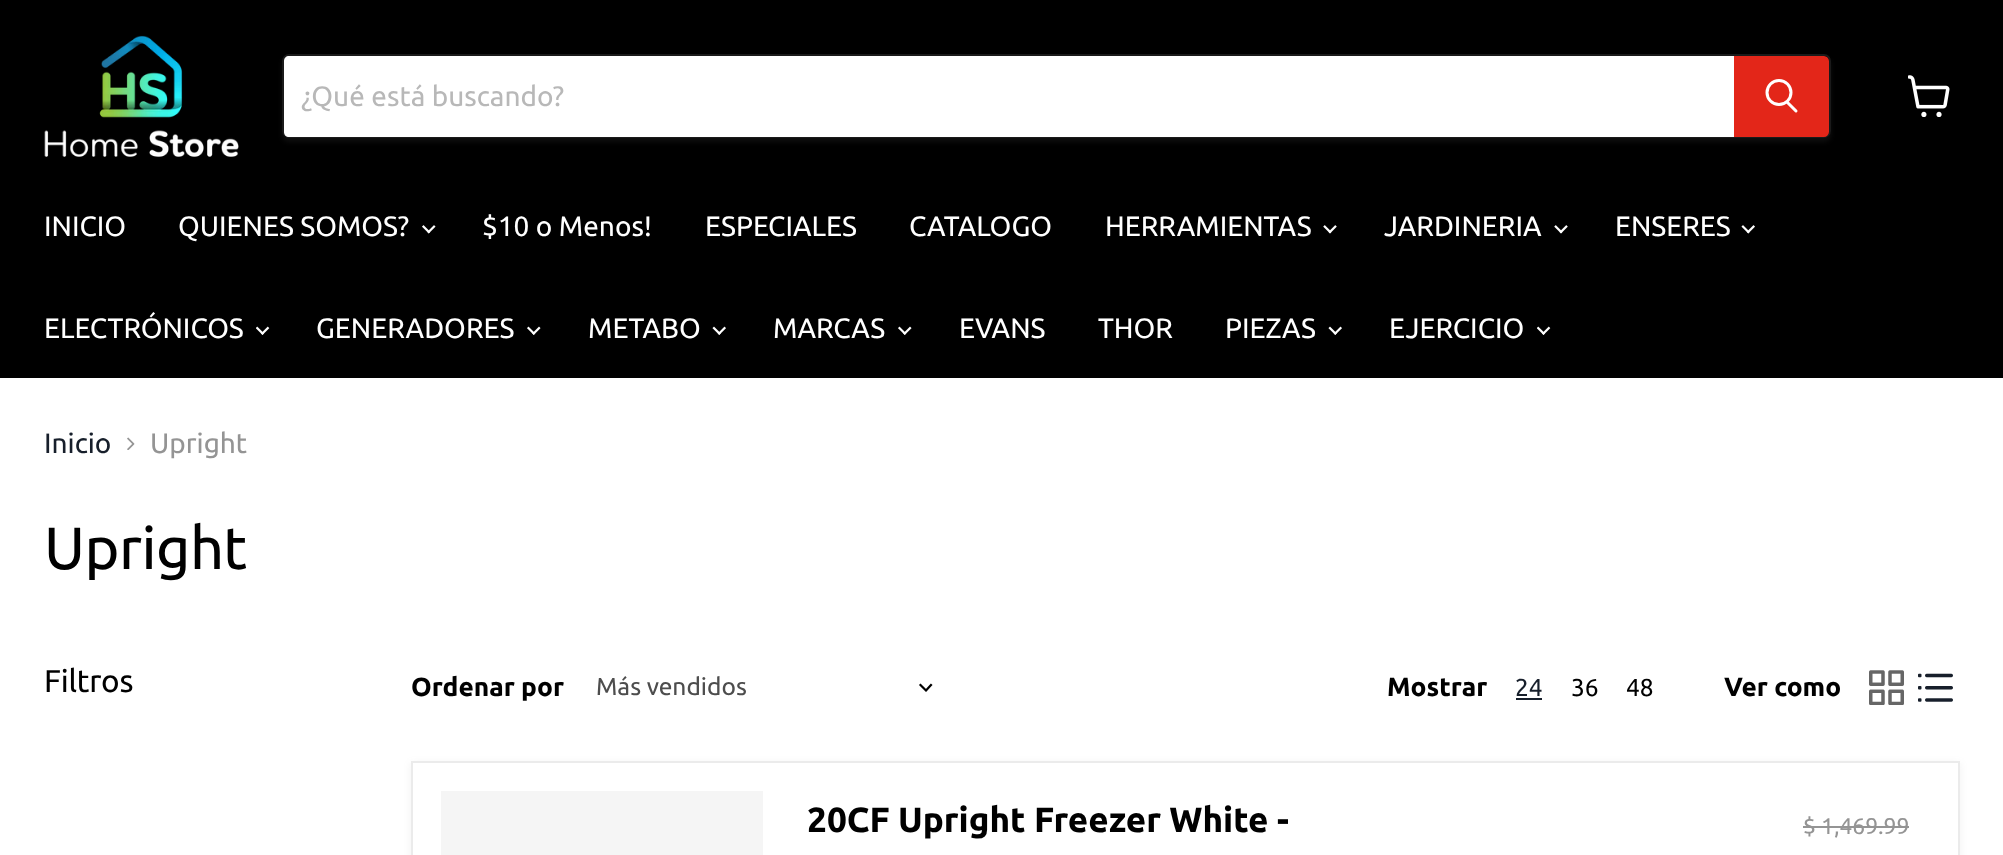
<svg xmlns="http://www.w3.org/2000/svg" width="2003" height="855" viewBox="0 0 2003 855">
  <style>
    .t1 { font: 28px Ubuntu; fill: #b8b8b8; }
    .t2 { font: 28px Ubuntu; fill: #fff; }
    .t3 { font: 28px Ubuntu; fill: #171f2b; }
    .t4 { font: 28px Ubuntu; fill: #949494; }
    .t5 { font: 59.5px Ubuntu; letter-spacing: -0.5px; fill: #000; }
    .t6 { font: 31.5px Ubuntu; letter-spacing: -0.25px; fill: #000; }
    .t7 { font: bold 26.25px Ubuntu; fill: #000; }
    .t8 { font: 24.5px Ubuntu; fill: #4d4d4d; }
    .t9 { font: 24.5px Ubuntu; fill: #171f2b; }
    .t10 { font: 24.5px Ubuntu; fill: #000; }
    .t11 { font: bold 35px Ubuntu; fill: #000; }
    .t12 { font: 22.75px Ubuntu; fill: #949494; }
  </style>
  <defs>
    <clipPath id="clip1"><path d="M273 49H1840V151H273ZM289 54H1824C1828 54 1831 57 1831 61V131C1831 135 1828 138 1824 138H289C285 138 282 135 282 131V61C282 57 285 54 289 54Z" clip-rule="evenodd"/></clipPath>
  </defs>
  <rect width="100%" height="100%" fill="#fff"/>
  <rect x="0" y="0" width="2003" height="378" fill="#000"/>
  <image x="44" y="35" width="195" height="122" href="images/1.png"/>
  <g clip-path="url(#clip1)">
    <rect x="282" y="58" width="1549" height="84" rx="7" fill="#8080801c" filter="blur(2.5px)"/>
  </g>
  <rect x="283" y="55" width="1547" height="82" rx="6" fill="none" stroke="#80808033" stroke-width="2"/>
  <path d="M289 56H1734V137H289C286 137 284 135 284 132V61C284 58 286 56 289 56Z" fill="#fff"/>
  <text x="301" y="106" class="t1">¿Qué está buscando?</text>
  <path d="M1735 57H1824C1826 57 1828 59 1828 61V132C1828 134 1826 136 1824 136H1735Z" fill="#e32619" stroke="#e32619" stroke-width="2"/>
  <path d="M1796 111L1787.5 102.5" fill="none" stroke="#fff" stroke-width="3" stroke-linecap="round"/>
  <circle cx="1779" cy="92.5" r="12" fill="none" stroke="#fff" stroke-width="3"/>
  <image x="1908" y="75" width="42" height="42" href="images/2.png"/>
  <text x="44" y="236" class="t2">INICIO</text>
  <text x="178" y="236" class="t2">QUIENES SOMOS?</text>
  <image x="422" y="225" width="14" height="9" href="images/3.png"/>
  <text x="482" y="236" class="t2">$10 o Menos!</text>
  <text x="705" y="236" class="t2">ESPECIALES</text>
  <text x="909" y="236" class="t2">CATALOGO</text>
  <text x="1105" y="236" class="t2">HERRAMIENTAS</text>
  <image x="1323" y="225" width="14" height="9" href="images/4.png"/>
  <text x="1384" y="236" class="t2">JARDINERIA</text>
  <image x="1554" y="225" width="14" height="9" href="images/4.png"/>
  <text x="1615" y="236" class="t2">ENSERES</text>
  <image x="1741" y="225" width="14" height="9" href="images/5.png"/>
  <text x="44" y="338" class="t2">ELECTRÓNICOS</text>
  <image x="256" y="326" width="14" height="9" href="images/6.png"/>
  <text x="316" y="338" class="t2">GENERADORES</text>
  <image x="527" y="326" width="14" height="9" href="images/7.png"/>
  <text x="588" y="338" class="t2">METABO</text>
  <image x="712" y="326" width="14" height="9" href="images/8.png"/>
  <text x="773" y="338" class="t2">MARCAS</text>
  <image x="898" y="326" width="14" height="9" href="images/7.png"/>
  <text x="959" y="338" class="t2">EVANS</text>
  <text x="1098" y="338" class="t2">THOR</text>
  <text x="1225" y="338" class="t2">PIEZAS</text>
  <image x="1328" y="326" width="14" height="9" href="images/8.png"/>
  <text x="1389" y="338" class="t2">EJERCICIO</text>
  <image x="1537" y="326" width="14" height="9" href="images/6.png"/>
  <text x="44" y="453" class="t3">Inicio</text>
  <image x="127" y="437" width="8" height="13" href="images/9.png"/>
  <text x="150" y="453" class="t4">Upright</text>
  <text x="44" y="569" class="t5">Upright</text>
  <text x="44" y="692" class="t6">Filtros</text>
  <text x="411" y="696" class="t7">Ordenar por</text>
  <text x="596" y="695" class="t8">Más vendidos</text>
  <path d="M926 690.5L931 685M926 690.5L920.5 685" fill="none" stroke="#000" stroke-width="2.2" stroke-linecap="square"/>
  <text x="1387" y="696" class="t7">Mostrar</text>
  <text x="1515" y="696" class="t9">24</text>
  <rect x="1516" y="698" width="26" height="2" fill="#171f2b"/>
  <text x="1571" y="696" class="t10">36</text>
  <text x="1626" y="696" class="t10">48</text>
  <text x="1724" y="696" class="t7">Ver como</text>
  <image x="1869" y="670" width="35" height="35" href="images/10.png"/>
  <image x="1918" y="673" width="35" height="29" href="images/11.png"/>
  <rect x="411" y="763" width="1549" height="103" fill="#8080801c" filter="blur(3.5px)"/>
  <rect x="412" y="762" width="1547" height="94" fill="#fff" stroke="#ebebeb" stroke-width="2"/>
  <rect x="441" y="791" width="322" height="64" fill="#f5f5f5"/>
  <text x="807" y="832" class="t11">20CF Upright Freezer White -</text>
  <text x="1803" y="834" class="t12">$ 1,469.99</text>
  <rect x="1803" y="826" width="106" height="2" fill="#949494"/>
</svg>
